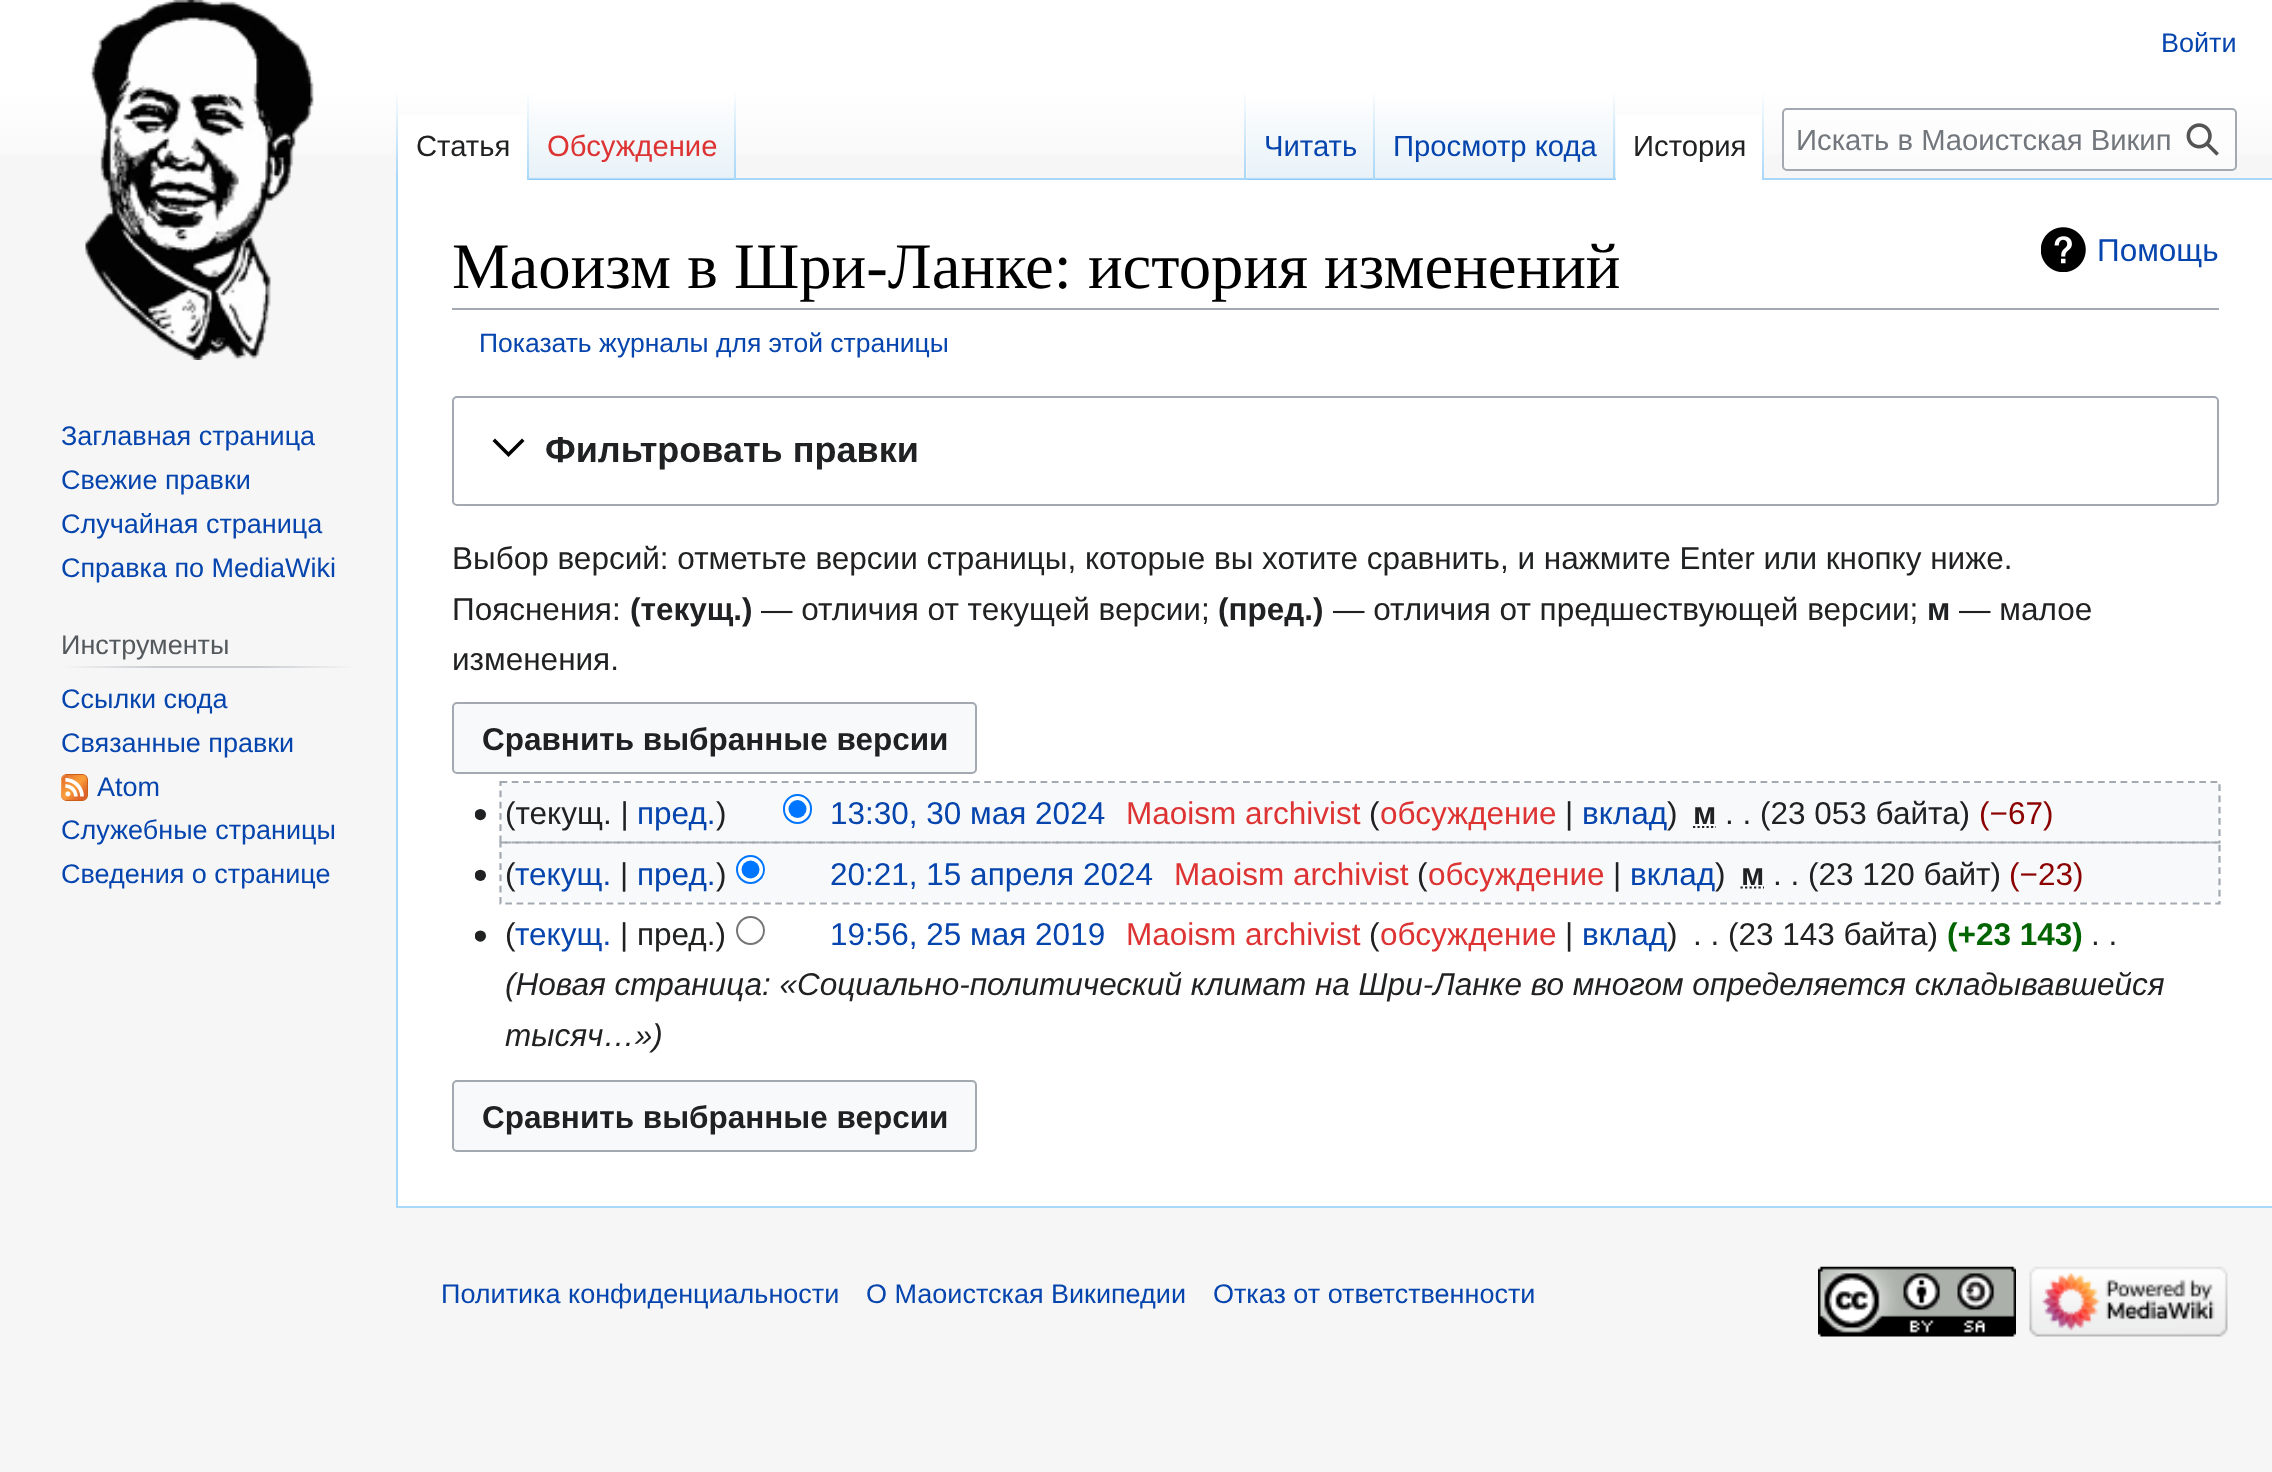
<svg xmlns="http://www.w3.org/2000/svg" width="2272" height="1472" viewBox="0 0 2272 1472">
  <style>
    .t1 { font: 27px Liberation Sans; fill: #0645ad; }
    .t2 { font: 29.25px Liberation Sans; fill: #202122; }
    .t3 { font: 29.25px Liberation Sans; fill: #d33; }
    .t4 { font: 29.25px Liberation Sans; fill: #0645ad; }
    .t5 { font: 29.25px Liberation Sans; fill: #72777d; }
    .t6 { font: 27px Liberation Sans; fill: #54595d; }
    .t7 { font: 64.75px Liberation Serif; fill: #000; }
    .t8 { font: 31.5px Liberation Sans; fill: #0645ad; }
    .t9 { font: 26.5px Liberation Sans; fill: #0645ad; }
    .t10 { font: bold 36px Liberation Sans; fill: #202122; }
    .t11 { font: 31.5px Liberation Sans; fill: #202122; }
    .t12 { font: bold 31.5px Liberation Sans; fill: #202122; }
    .t13 { font: 31.5px Liberation Sans; fill: #d33; }
    .t14 { font: 31.5px Liberation Sans; fill: #8b0000; }
    .t15 { font: bold 31.5px Liberation Sans; fill: #006400; }
    .t16 { font: italic 31.5px Liberation Sans; fill: #202122; }
  </style>
  <defs>
    <linearGradient id="g1" gradientUnits="userSpaceOnUse" x1="1136" y1="0" x2="1136" y2="180"><stop offset="0.5" stop-color="#fff"/><stop offset="1" stop-color="#f6f6f6"/></linearGradient>
    <linearGradient id="g2" gradientUnits="userSpaceOnUse" x1="397" y1="90" x2="397" y2="180"><stop offset="0" stop-color="#a7d7f9" stop-opacity="0"/><stop offset="1" stop-color="#a7d7f9"/></linearGradient>
    <linearGradient id="g3" gradientUnits="userSpaceOnUse" x1="528" y1="90" x2="528" y2="180"><stop offset="0" stop-color="#fff"/><stop offset="1" stop-color="#a7d7f9"/></linearGradient>
    <linearGradient id="g4" gradientUnits="userSpaceOnUse" x1="632" y1="180" x2="632" y2="90"><stop offset="0" stop-color="#77c1f6"/><stop offset="0.03" stop-color="#e8f2f8"/><stop offset="1" stop-color="#fff"/></linearGradient>
    <linearGradient id="g5" gradientUnits="userSpaceOnUse" x1="735" y1="90" x2="735" y2="180"><stop offset="0" stop-color="#a7d7f9" stop-opacity="0"/><stop offset="1" stop-color="#a7d7f9"/></linearGradient>
    <linearGradient id="g6" gradientUnits="userSpaceOnUse" x1="1245" y1="90" x2="1245" y2="180"><stop offset="0" stop-color="#a7d7f9" stop-opacity="0"/><stop offset="1" stop-color="#a7d7f9"/></linearGradient>
    <linearGradient id="g7" gradientUnits="userSpaceOnUse" x1="1311" y1="180" x2="1311" y2="90"><stop offset="0" stop-color="#77c1f6"/><stop offset="0.03" stop-color="#e8f2f8"/><stop offset="1" stop-color="#fff"/></linearGradient>
    <linearGradient id="g8" gradientUnits="userSpaceOnUse" x1="1374" y1="90" x2="1374" y2="180"><stop offset="0" stop-color="#a7d7f9" stop-opacity="0"/><stop offset="1" stop-color="#a7d7f9"/></linearGradient>
    <linearGradient id="g9" gradientUnits="userSpaceOnUse" x1="1495" y1="180" x2="1495" y2="90"><stop offset="0" stop-color="#77c1f6"/><stop offset="0.03" stop-color="#e8f2f8"/><stop offset="1" stop-color="#fff"/></linearGradient>
    <linearGradient id="g10" gradientUnits="userSpaceOnUse" x1="1614" y1="90" x2="1614" y2="180"><stop offset="0" stop-color="#a7d7f9" stop-opacity="0"/><stop offset="1" stop-color="#a7d7f9"/></linearGradient>
    <linearGradient id="g11" gradientUnits="userSpaceOnUse" x1="1763" y1="90" x2="1763" y2="180"><stop offset="0" stop-color="#fff"/><stop offset="1" stop-color="#a7d7f9"/></linearGradient>
    <linearGradient id="g12" gradientUnits="userSpaceOnUse" x1="61" y1="667" x2="356" y2="667"><stop offset="0" stop-color="#f6f6f6"/><stop offset="0.33" stop-color="#c8ccd1"/><stop offset="0.66" stop-color="#c8ccd1"/><stop offset="1" stop-color="#f6f6f6"/></linearGradient>
  </defs>
  <rect width="100%" height="100%" fill="#f6f6f6"/>
  <rect x="0" y="0" width="2272" height="155" fill="url(#g1)"/>
  <text x="2161" y="52" class="t1">Войти</text>
  <rect x="396" y="1206" width="1876" height="2" fill="#a7d7f9"/>
  <rect x="396" y="178" width="2" height="1030" fill="#a7d7f9"/>
  <rect x="396" y="90" width="2" height="90" fill="url(#g2)"/>
  <rect x="398" y="115" width="129" height="65" fill="#fff"/>
  <rect x="527" y="90" width="2" height="90" fill="url(#g3)"/>
  <text x="416" y="156" class="t2">Статья</text>
  <rect x="529" y="103" width="207" height="77" fill="url(#g4)"/>
  <rect x="734" y="90" width="2" height="90" fill="url(#g5)"/>
  <text x="547" y="156" class="t3">Обсуждение</text>
  <rect x="736" y="178" width="1536" height="2" fill="#a7d7f9"/>
  <rect x="1244" y="90" width="2" height="90" fill="url(#g6)"/>
  <rect x="1247" y="103" width="128" height="77" fill="url(#g7)"/>
  <rect x="1373" y="90" width="2" height="90" fill="url(#g8)"/>
  <text x="1264" y="156" class="t4">Читать</text>
  <rect x="1375" y="103" width="241" height="77" fill="url(#g9)"/>
  <rect x="1613" y="90" width="2" height="90" fill="url(#g10)"/>
  <text x="1393" y="156" class="t4">Просмотр кода</text>
  <rect x="1616" y="115" width="146" height="65" fill="#fff"/>
  <rect x="1762" y="90" width="2" height="90" fill="url(#g11)"/>
  <text x="1633" y="156" class="t2">История</text>
  <rect x="1783" y="109" width="453" height="61" rx="4" fill="#ffffff80" stroke="#a2a9b1" stroke-width="2"/>
  <text x="1796" y="150" class="t5">Искать в Маоистская Викип</text>
  <image x="2186" y="123" width="33" height="33" href="images/1.png"/>
  <image x="85" y="0" width="229" height="360" href="images/2.png"/>
  <text x="61" y="445" class="t1">Заглавная страница</text>
  <text x="61" y="489" class="t1">Свежие правки</text>
  <text x="61" y="533" class="t1">Случайная страница</text>
  <text x="61" y="577" class="t1">Справка по MediaWiki</text>
  <rect x="61" y="666" width="295" height="2" fill="url(#g12)"/>
  <text x="61" y="654" class="t6">Инструменты</text>
  <text x="61" y="708" class="t1">Ссылки сюда</text>
  <text x="61" y="752" class="t1">Связанные правки</text>
  <image x="61" y="774" width="27" height="27" href="images/3.png"/>
  <text x="97" y="796" class="t1">Atom</text>
  <text x="61" y="839" class="t1">Служебные страницы</text>
  <text x="61" y="883" class="t1">Сведения о странице</text>
  <rect x="398" y="180" width="1874" height="1026" fill="#fff"/>
  <rect x="452" y="308" width="1767" height="2" fill="#a2a9b1"/>
  <text x="452" y="288" class="t7">Маоизм в Шри-Ланке: история изменений</text>
  <image x="2041" y="227" width="45" height="45" href="images/4.png"/>
  <text x="2097" y="261" class="t8">Помощь</text>
  <text x="479" y="352" class="t9">Показать журналы для этой страницы</text>
  <rect x="453" y="397" width="1765" height="108" rx="4" fill="none" stroke="#a2a9b1" stroke-width="2"/>
  <path d="M522 438.5L508.5 452L495 438.5L492.5 441L508.5 457L524.5 441Z" fill="#000"/>
  <text x="545" y="462" class="t10">Фильтровать правки</text>
  <text x="452" y="569" class="t11">Выбор версий: отметьте версии страницы, которые вы хотите сравнить, и нажмите Enter или кнопку ниже.</text>
  <text x="452" y="620" class="t11">Пояснения:</text>
  <text x="630" y="620" class="t12">(текущ.)</text>
  <text x="761" y="620" class="t11">— отличия от текущей версии;</text>
  <text x="1218" y="620" class="t12">(пред.)</text>
  <text x="1333" y="620" class="t11">— отличия от предшествующей версии;</text>
  <text x="1927" y="620" class="t12">м</text>
  <text x="1959" y="620" class="t11">— малое</text>
  <text x="452" y="670" class="t11">изменения.</text>
  <rect x="453" y="703" width="523" height="70" rx="4" fill="#f8f9fa" stroke="#a2a9b1" stroke-width="2"/>
  <text x="482" y="750" class="t12">Сравнить выбранные версии</text>
  <rect x="502" y="783" width="1717" height="59" fill="#f8f9fa"/>
  <image x="475" y="809" width="11" height="12" href="images/5.png"/>
  <text x="505" y="824" class="t11">(текущ. |</text>
  <text x="637" y="824" class="t8">пред.</text>
  <text x="716" y="824" class="t11">)</text>
  <rect x="784" y="795" width="27" height="28" rx="13.5" fill="#fff" stroke="#0075ff" stroke-width="2"/>
  <circle cx="797.5" cy="809" r="9" fill="#0075ff"/>
  <text x="830" y="824" class="t8">13:30, 30 мая 2024</text>
  <text x="1126" y="824" class="t13">Maoism archivist</text>
  <text x="1369" y="824" class="t11">(</text>
  <text x="1380" y="824" class="t13">обсуждение</text>
  <text x="1565" y="824" class="t11">|</text>
  <text x="1582" y="824" class="t8">вклад</text>
  <text x="1667" y="824" class="t11">)</text>
  <text x="1693" y="824" class="t12">м</text>
  <path d="M1693 827H1716" fill="none" stroke="#202122" stroke-width="2.2" stroke-dasharray="2.25 2.25"/>
  <text x="1725" y="824" class="t11">. . (23 053 байта)</text>
  <text x="1979" y="824" class="t14">(−67)</text>
  <path d="M500.5 782H2219.5V842.5H500.5Z" fill="none" stroke="#a2a9b1" stroke-width="2.2" stroke-dasharray="6.75 4.5"/>
  <rect x="502" y="844" width="1717" height="58" fill="#f8f9fa"/>
  <image x="475" y="869" width="11" height="12" href="images/6.png"/>
  <text x="505" y="885" class="t11">(</text>
  <text x="515" y="885" class="t8">текущ.</text>
  <text x="620" y="885" class="t11">|</text>
  <text x="637" y="885" class="t8">пред.</text>
  <text x="716" y="885" class="t11">)</text>
  <circle cx="750.5" cy="869.5" r="13.5" fill="#fff" stroke="#0075ff" stroke-width="2"/>
  <circle cx="750.5" cy="869.5" r="9" fill="#0075ff"/>
  <text x="830" y="885" class="t8">20:21, 15 апреля 2024</text>
  <text x="1174" y="885" class="t13">Maoism archivist</text>
  <text x="1417" y="885" class="t11">(</text>
  <text x="1428" y="885" class="t13">обсуждение</text>
  <text x="1613" y="885" class="t11">|</text>
  <text x="1630" y="885" class="t8">вклад</text>
  <text x="1715" y="885" class="t11">)</text>
  <text x="1741" y="885" class="t12">м</text>
  <path d="M1740.5 887.5H1764" fill="none" stroke="#202122" stroke-width="2.2" stroke-dasharray="2.25 2.25"/>
  <text x="1773" y="885" class="t11">. . (23 120 байт)</text>
  <text x="2009" y="885" class="t14">(−23)</text>
  <path d="M500.5 842.5H2219.5V903.5H500.5Z" fill="none" stroke="#a2a9b1" stroke-width="2.2" stroke-dasharray="6.75 4.5"/>
  <image x="475" y="930" width="11" height="12" href="images/7.png"/>
  <text x="505" y="945" class="t11">(</text>
  <text x="515" y="945" class="t8">текущ.</text>
  <text x="620" y="945" class="t11">| пред.)</text>
  <circle cx="750.5" cy="930.5" r="13.5" fill="none" stroke="#767676" stroke-width="2"/>
  <text x="830" y="945" class="t8">19:56, 25 мая 2019</text>
  <text x="1126" y="945" class="t13">Maoism archivist</text>
  <text x="1369" y="945" class="t11">(</text>
  <text x="1380" y="945" class="t13">обсуждение</text>
  <text x="1565" y="945" class="t11">|</text>
  <text x="1582" y="945" class="t8">вклад</text>
  <text x="1667" y="945" class="t11">)</text>
  <text x="1693" y="945" class="t11">. . (23 143 байта)</text>
  <text x="1947" y="945" class="t15">(+23 143)</text>
  <text x="2091" y="945" class="t11">. .</text>
  <text x="505" y="995" class="t16">(Новая страница: «Социально-политический климат на Шри-Ланке во многом определяется складывавшейся</text>
  <text x="505" y="1046" class="t16">тысяч…»)</text>
  <rect x="453" y="1081" width="523" height="70" rx="4" fill="#f8f9fa" stroke="#a2a9b1" stroke-width="2"/>
  <text x="482" y="1128" class="t12">Сравнить выбранные версии</text>
  <text x="441" y="1303" class="t1">Политика конфиденциальности</text>
  <text x="866" y="1303" class="t1">О Маоистская Википедии</text>
  <text x="1213" y="1303" class="t1">Отказ от ответственности</text>
  <image x="1818" y="1266" width="198" height="71" href="images/8.png"/>
  <image x="2029" y="1266" width="199" height="71" href="images/9.png"/>
</svg>
